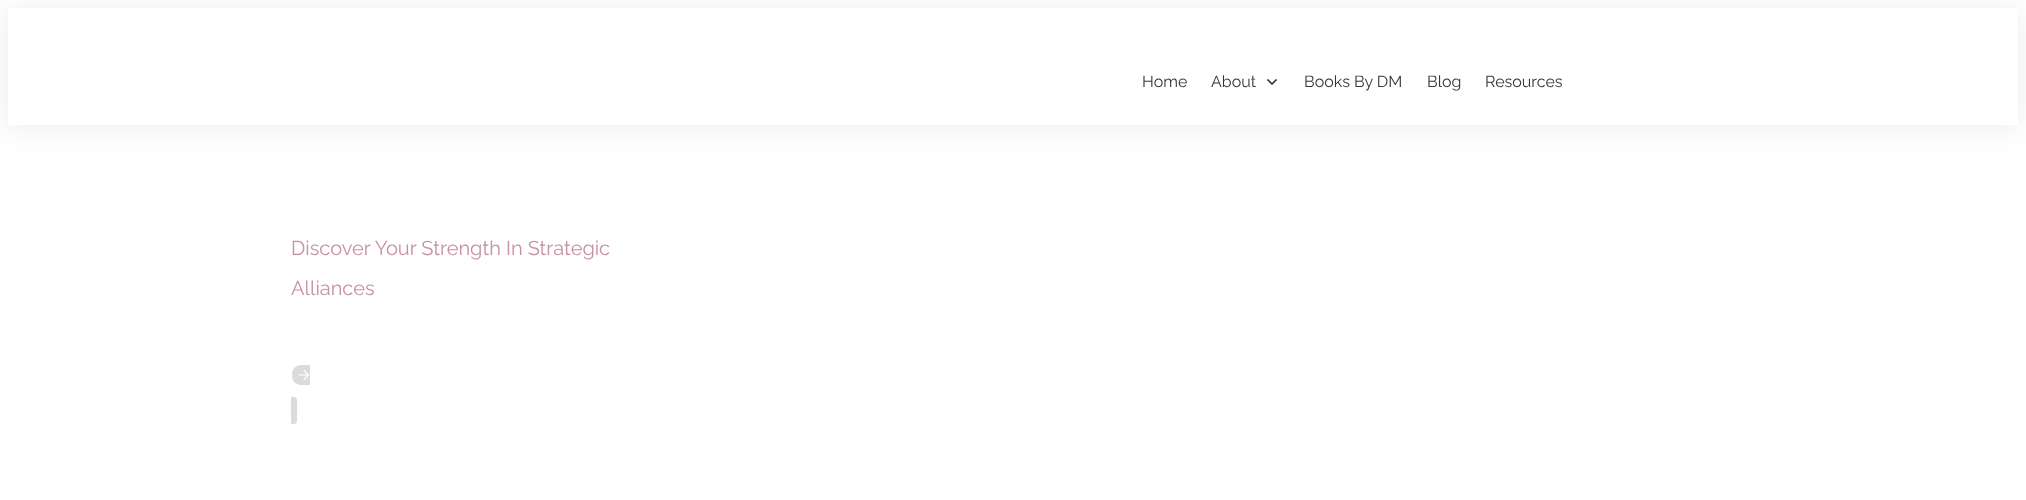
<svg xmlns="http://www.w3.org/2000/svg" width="2026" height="500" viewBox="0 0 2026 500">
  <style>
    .t1 { font: 16px Raleway; fill: #353535; }
    .t2 { font: 20px Raleway; fill: #c690a5; }
  </style>
  <defs>
    <clipPath id="clip1"><path d="M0 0H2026V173H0ZM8 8H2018V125H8Z" clip-rule="evenodd"/></clipPath>
  </defs>
  <rect width="100%" height="100%" fill="#fff"/>
  <g clip-path="url(#clip1)">
    <rect x="8" y="10" width="2010" height="117" fill="#00000014" filter="blur(15px)"/>
  </g>
  <text x="1142" y="87" class="t1">Home</text>
  <text x="1211" y="87" class="t1">About</text>
  <image x="1267" y="79" width="10" height="6" href="images/1.png"/>
  <text x="1304" y="87" class="t1">Books By DM</text>
  <text x="1427" y="87" class="t1">Blog</text>
  <text x="1485" y="87" class="t1">Resources</text>
  <text x="291" y="255" class="t2">Discover Your Strength In Strategic</text>
  <text x="291" y="295" class="t2">Alliances</text>
  <path d="M301 365H310V385H301C296 385 292 381 292 376V374C292 369 296 365 301 365Z" fill="#dbdbdb"/>
  <path d="M291 397H294C295.5 397 297 398.5 297 400V421C297 422.5 295.5 424 294 424H291Z" fill="#dbdbdb"/>
  <image x="298" y="370" width="11" height="10" href="images/2.png"/>
</svg>
